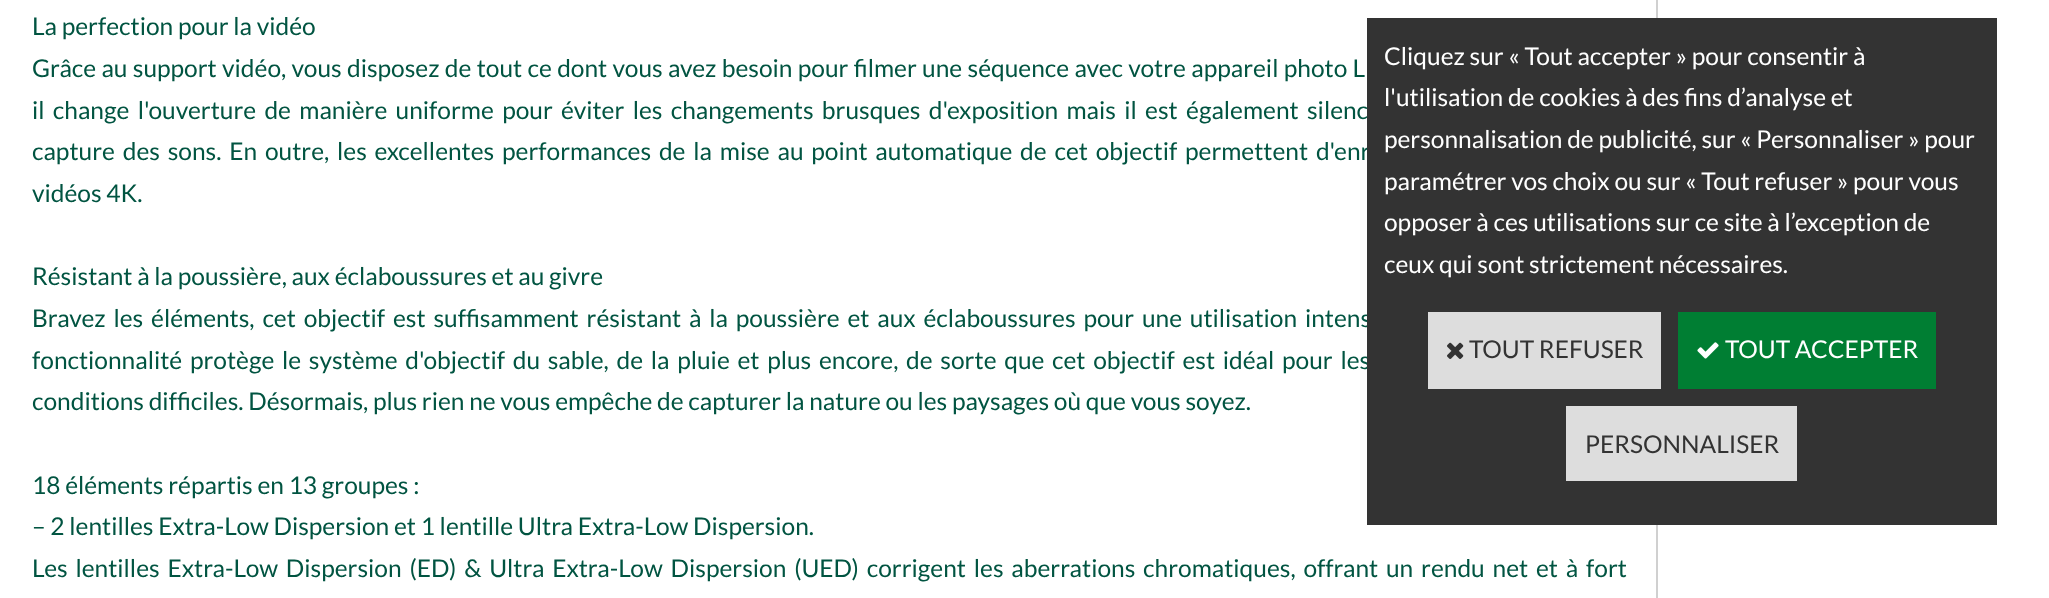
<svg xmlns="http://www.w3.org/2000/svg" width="2049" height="598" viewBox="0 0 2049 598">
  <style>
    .t1 { font: 24.5px Lato; fill: #015441; }
    .t2 { font: 24.5px Lato; fill: #fff; }
    .t3 { font: 24.5px Lato; fill: #333; }
  </style>
  <rect width="100%" height="100%" fill="#fff"/>
  <text x="32" y="35" class="t1">La perfection pour la vidéo</text>
  <text x="32" y="77" word-spacing="0.6" class="t1">Grâce au support vidéo, vous disposez de tout ce dont vous avez besoin pour filmer une séquence avec votre appareil photo L</text>
  <text x="32" y="119" word-spacing="3.6" class="t1">il change l'ouverture de manière uniforme pour éviter les changements brusques d'exposition mais il est également silenc</text>
  <text x="32" y="160" word-spacing="3.1" class="t1">capture des sons. En outre, les excellentes performances de la mise au point automatique de cet objectif permettent d'enr</text>
  <text x="32" y="202" class="t1">vidéos 4K.</text>
  <text x="32" y="285" class="t1">Résistant à la poussière, aux éclaboussures et au givre</text>
  <text x="32" y="327" word-spacing="3.1" class="t1">Bravez les éléments, cet objectif est suffisamment résistant à la poussière et aux éclaboussures pour une utilisation intens</text>
  <text x="32" y="369" word-spacing="3" class="t1">fonctionnalité protège le système d'objectif du sable, de la pluie et plus encore, de sorte que cet objectif est idéal pour les</text>
  <text x="32" y="410" class="t1">conditions difficiles. Désormais, plus rien ne vous empêche de capturer la nature ou les paysages où que vous soyez.</text>
  <text x="32" y="494" class="t1">18 éléments répartis en 13 groupes :</text>
  <text x="32" y="535" class="t1">– 2 lentilles Extra-Low Dispersion et 1 lentille Ultra Extra-Low Dispersion.</text>
  <text x="32" y="577" word-spacing="3.1" class="t1">Les lentilles Extra-Low Dispersion (ED) &amp; Ultra Extra-Low Dispersion (UED) corrigent les aberrations chromatiques, offrant un rendu net et à fort</text>
  <rect x="1656" y="0" width="2" height="598" fill="#d0d0d0"/>
  <rect x="1367" y="18" width="630" height="507" fill="#333"/>
  <text x="1384" y="65" class="t2">Cliquez sur « Tout accepter » pour consentir à</text>
  <text x="1384" y="106" class="t2">l'utilisation de cookies à des fins d’analyse et</text>
  <text x="1384" y="148" class="t2">personnalisation de publicité, sur « Personnaliser » pour</text>
  <text x="1384" y="190" class="t2">paramétrer vos choix ou sur « Tout refuser » pour vous</text>
  <text x="1384" y="231" class="t2">opposer à ces utilisations sur ce site à l’exception de</text>
  <text x="1384" y="273" class="t2">ceux qui sont strictement nécessaires.</text>
  <rect x="1428" y="312" width="233" height="77" fill="#ddd"/>
  <image x="1447" y="342" width="17" height="17" href="images/1.png"/>
  <text x="1469" y="358" class="t3">TOUT REFUSER</text>
  <rect x="1678" y="312" width="258" height="77" fill="#007e33"/>
  <image x="1697" y="342" width="22" height="17" href="images/2.png"/>
  <text x="1725" y="358" class="t2">TOUT ACCEPTER</text>
  <rect x="1566" y="406" width="231" height="75" fill="#ddd"/>
  <text x="1585" y="453" class="t3">PERSONNALISER</text>
</svg>
